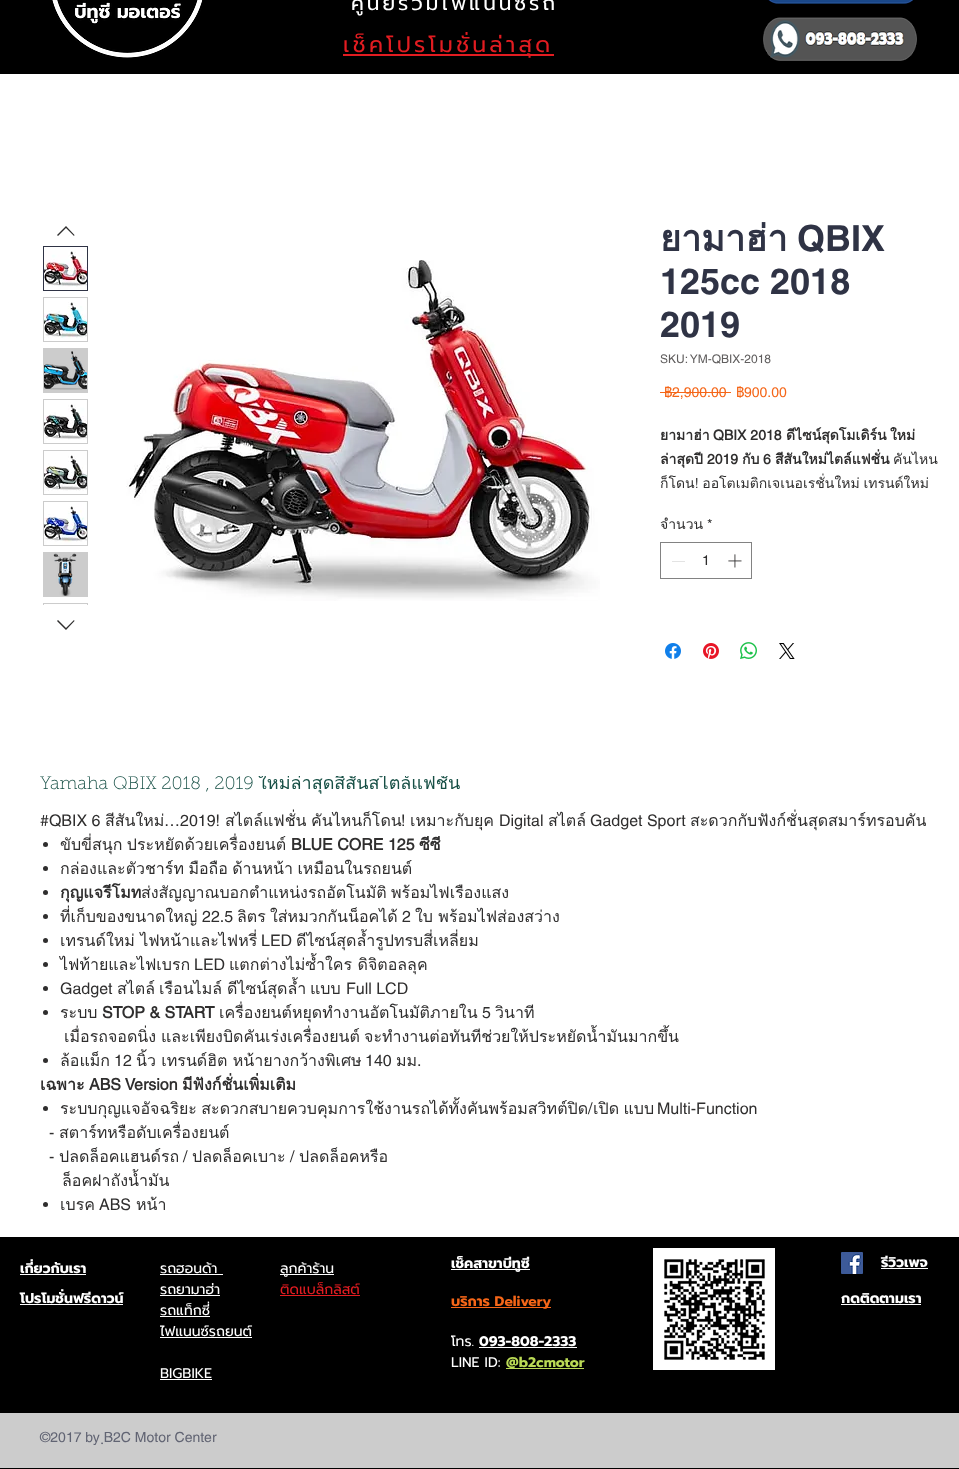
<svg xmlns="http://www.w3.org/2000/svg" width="959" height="1469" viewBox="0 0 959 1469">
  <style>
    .t1 { font: 20px Prompt; letter-spacing: 3px; fill: #fff; }
    .t2 { font: 22px Prompt; letter-spacing: 3.25px; fill: #e21c21; }
    .t3 { font: bold 36px Loma; fill: #2f3345; }
    .t4 { font: bold 36px helvetica; fill: #2f3345; }
    .t5 { font: 12px helvetica; fill: #605e5e; }
    .t6 { font: 14px Loma; fill: #f56618; }
    .t7 { font: 14px helvetica; fill: #f56618; }
    .t8 { font: bold 14px Loma; fill: #2f2e2e; }
    .t9 { font: bold 14px 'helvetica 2'; fill: #2f2e2e; }
    .t10 { font: 14px Loma; fill: #2f2e2e; }
    .t11 { font: 14px helvetica; fill: #2f2e2e; }
    .t12 { font: 100 18px 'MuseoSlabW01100'; fill: #164f45; }
    .t13 { font: 18px Loma; fill: #164f45; }
    .t14 { font: 16px helvetica; fill: #2f2e2e; }
    .t15 { font: 16px Loma; fill: #2f2e2e; }
    .t16 { font: bold 16px 'helvetica 2'; fill: #2f2e2e; }
    .t17 { font: bold 16px Loma; fill: #2f2e2e; }
    .t18 { font: bold 14px Prompt; fill: #fff; }
    .t19 { font: 14px Prompt; fill: #fff; }
    .t20 { font: 14px Prompt; fill: #e21c21; }
    .t21 { font: bold 14px Prompt; fill: #f56618; }
    .t22 { font: bold 14px Prompt; fill: #bada55; }
    .t23 { font: 14px helvetica; fill: #616473; }
  </style>
  <defs>
    <clipPath id="clip1"><rect x="660" y="423" width="280" height="72"/></clipPath>
    <clipPath id="clip2"><rect x="40" y="776" width="900" height="441"/></clipPath>
  </defs>
  <rect width="100%" height="100%" fill="#000"/>
  <image x="52" y="0" width="151" height="58" href="images/1.png"/>
  <text x="351" y="10" class="t1">ศูนย์รวมไฟแนนซ์รถ</text>
  <image x="768" y="0" width="145" height="4" href="images/2.png"/>
  <rect x="343" y="54" width="211" height="2" fill="#e21c21"/>
  <text x="343" y="52" class="t2">เช็คโปรโมชั่นล่าสุด</text>
  <image x="763" y="17" width="154" height="44" href="images/3.png"/>
  <rect x="0" y="74" width="959" height="1163" fill="#fff"/>
  <path d="M66 226L74.5 235L74 236L66 228L58 236L57 235Z" fill="#2f2e2e" fill-rule="evenodd"/>
  <rect x="43.5" y="246.5" width="44" height="44" fill="none" stroke="#2f3345"/>
  <image x="44" y="247" width="43" height="43" href="images/4.png"/>
  <rect x="43" y="297" width="45" height="45" fill="#ccc"/>
  <image x="44" y="298" width="43" height="43" href="images/5.png"/>
  <rect x="43" y="348" width="45" height="45" fill="#ccc"/>
  <image x="44" y="351" width="43" height="39" href="images/6.png"/>
  <rect x="43" y="399" width="45" height="45" fill="#ccc"/>
  <image x="44" y="400" width="43" height="43" href="images/7.png"/>
  <rect x="43" y="450" width="45" height="45" fill="#ccc"/>
  <image x="44" y="451" width="43" height="43" href="images/8.png"/>
  <rect x="43" y="501" width="45" height="45" fill="#ccc"/>
  <image x="44" y="502" width="43" height="43" href="images/9.png"/>
  <rect x="43" y="552" width="45" height="45" fill="#ccc"/>
  <image x="53" y="553" width="24" height="43" href="images/10.png"/>
  <rect x="43" y="603" width="45" height="2" fill="#ccc"/>
  <rect x="44" y="604" width="43" height="1" fill="#fefefe"/>
  <path d="M74 620L74.5 621L66 630L57 621L58 620L66 628Z" fill="#2f2e2e" fill-rule="evenodd"/>
  <image x="126" y="260" width="474" height="341" href="images/11.png"/>
  <text x="660" y="251" class="t3">ยามาฮ่า</text>
  <text x="797" y="251" class="t4">QBIX</text>
  <text x="660" y="294" class="t4">125cc 2018</text>
  <text x="660" y="337" class="t4">2019</text>
  <text x="660" y="363" class="t5">SKU: YM-QBIX-2018</text>
  <text x="664" y="397" class="t6">฿</text>
  <rect x="660" y="392" width="71" height="1" fill="#f56618"/>
  <text x="672" y="397" class="t7">2,900.00</text>
  <text x="736" y="397" class="t6">฿</text>
  <text x="744" y="397" class="t7">900.00</text>
  <text x="660" y="440" class="t8">ยามาฮ่า</text>
  <text x="713" y="440" class="t9">QBIX 2018</text>
  <text x="786" y="440" class="t8">ดีไซน์สุดโมเดิร์น</text>
  <text x="890" y="440" class="t8">ใหม่</text>
  <g clip-path="url(#clip1)">
    <text x="660" y="464" class="t8">ล่าสุดปี</text>
  </g>
  <text x="707" y="464" class="t9">2019</text>
  <text x="742" y="464" class="t8">กับ</text>
  <text x="763" y="464" class="t9">6</text>
  <text x="775" y="464" class="t8">สีสันใหม่ไตล์แฟชั่น</text>
  <text x="893" y="464" class="t10">คันไหน</text>
  <g clip-path="url(#clip1)">
    <text x="660" y="488" word-spacing="-1" class="t10">ก็โดน! ออโตเมติกเจเนอเรชั่นใหม่ เทรนด์ใหม่</text>
  </g>
  <text x="660" y="529" class="t10">จำนวน</text>
  <text x="707" y="529" class="t11">*</text>
  <rect x="660.5" y="542.5" width="91" height="36" fill="none" stroke="#828282"/>
  <rect x="672" y="561" width="13" height="1" fill="#e3e3e3"/>
  <text x="702" y="565" class="t11">1</text>
  <image x="728" y="554" width="14" height="14" href="images/12.png"/>
  <image x="665" y="643" width="16" height="16" href="images/13.png"/>
  <image x="703" y="643" width="16" height="16" href="images/14.png"/>
  <image x="740" y="642" width="17" height="17" href="images/15.png"/>
  <image x="779" y="643" width="16" height="16" href="images/16.png"/>
  <text x="40" y="789" class="t12">Yamaha QBIX 2018 , 2019</text>
  <g clip-path="url(#clip2)">
    <text x="258" y="789" class="t13">ใหม่ล่าสุดสีสันสไตล์แฟชั่น</text>
  </g>
  <text x="40" y="826" class="t14">#QBIX 6</text>
  <text x="105" y="826" class="t15">สีสันใหม่</text>
  <text x="164" y="826" class="t14">…2019!</text>
  <text x="225" y="826" class="t15">สไตล์แฟชั่น</text>
  <text x="311" y="826" class="t15">คันไหนก็โดน</text>
  <text x="401" y="826" class="t14">!</text>
  <text x="410" y="826" class="t15">เหมาะกับยุค</text>
  <text x="499" y="826" class="t14">Digital</text>
  <text x="548" y="826" class="t15">สไตล์</text>
  <text x="590" y="826" class="t14">Gadget Sport</text>
  <text x="690" y="826" class="t15">สะดวกกับฟังก์ชั่นสุดสมาร์ทรอบคัน</text>
  <circle cx="45.5" cy="844.5" r="2.5" fill="#2f2e2e"/>
  <text x="60" y="850" word-spacing="-1" class="t15">ขับขี่สนุก ประหยัดด้วยเครื่องยนต์</text>
  <text x="291" y="850" class="t16">BLUE CORE 125</text>
  <text x="419" y="850" class="t17">ซีซี</text>
  <circle cx="45.5" cy="868.5" r="2.5" fill="#2f2e2e"/>
  <text x="60" y="874" word-spacing="-1" class="t15">กล่องและตัวชาร์ท มือถือ ด้านหน้า เหมือนในรถยนต์</text>
  <circle cx="45.5" cy="892.5" r="2.5" fill="#2f2e2e"/>
  <text x="60" y="898" class="t17">กุญแจรีโมท</text>
  <text x="141" y="898" word-spacing="-1" class="t15">ส่งสัญญาณบอกตำแหน่งรถอัตโนมัติ พร้อมไฟเรืองแสง</text>
  <circle cx="45.5" cy="916.5" r="2.5" fill="#2f2e2e"/>
  <text x="60" y="922" class="t15">ที่เก็บของขนาดใหญ่</text>
  <text x="202" y="922" class="t14">22.5</text>
  <text x="237" y="922" class="t15">ลิตร</text>
  <text x="270" y="922" class="t15">ใส่หมวกกันน็อคได้</text>
  <text x="402" y="922" class="t14">2</text>
  <text x="415" y="922" class="t15">ใบ พร้อมไฟส่องสว่าง</text>
  <circle cx="45.5" cy="940.5" r="2.5" fill="#2f2e2e"/>
  <text x="60" y="946" class="t15">เทรนด์ใหม่ ไฟหน้าและไฟหรี่</text>
  <text x="261" y="946" class="t14">LED</text>
  <text x="296" y="946" class="t15">ดีไซน์สุดล้ำรูปทรบสี่เหลี่ยม</text>
  <circle cx="45.5" cy="964.5" r="2.5" fill="#2f2e2e"/>
  <text x="60" y="970" class="t15">ไฟท้ายและไฟเบรก</text>
  <text x="194" y="970" class="t14">LED</text>
  <text x="229" y="970" class="t15">แตกต่างไม่ซ้ำใคร ดิจิตอลลุค</text>
  <circle cx="45.5" cy="988.5" r="2.5" fill="#2f2e2e"/>
  <text x="60" y="994" class="t14">Gadget</text>
  <text x="117" y="994" class="t15">สไตล์</text>
  <text x="159" y="994" class="t15">เรือนไมล์</text>
  <text x="227" y="994" class="t15">ดีไซน์สุดล้ำ</text>
  <text x="310" y="994" class="t15">แบบ</text>
  <text x="346" y="994" class="t14">Full LCD</text>
  <circle cx="45.5" cy="1012.5" r="2.5" fill="#2f2e2e"/>
  <text x="60" y="1018" class="t15">ระบบ</text>
  <text x="102" y="1018" class="t16">STOP &amp; START</text>
  <text x="219" y="1018" class="t15">เครื่องยนต์หยุดทำงานอัตโนมัติภายใน</text>
  <text x="482" y="1018" class="t14">5</text>
  <text x="495" y="1018" class="t15">วินาที</text>
  <text x="64" y="1042" class="t15">เมื่อรถจอดนิ่ง</text>
  <text x="161" y="1042" class="t15">และเพียงบิดคันเร่งเครื่องยนต์</text>
  <text x="364" y="1042" class="t15">จะทำงานต่อทันทีช่วยให้ประหยัดน้ำมันมากขึ้น</text>
  <circle cx="45.5" cy="1060.5" r="2.5" fill="#2f2e2e"/>
  <text x="60" y="1066" class="t15">ล้อแม็ก</text>
  <text x="114" y="1066" class="t14">12</text>
  <text x="136" y="1066" class="t15">นิ้ว เทรนด์ฮิต หน้ายางกว้างพิเศษ</text>
  <text x="365" y="1066" class="t14">140</text>
  <text x="396" y="1066" class="t15">มม</text>
  <text x="417" y="1066" class="t14">.</text>
  <text x="40" y="1090" class="t17">เฉพาะ</text>
  <text x="89" y="1090" class="t16">ABS Version</text>
  <text x="182" y="1090" class="t17">มีฟังก์ชั่นเพิ่มเติม</text>
  <text x="60" y="1114" word-spacing="-1" class="t15">ระบบกุญแจอัจฉริยะ สะดวกสบายควบคุมการใช้งานรถได้ทั้งคันพร้อมสวิทต์ปิด</text>
  <text x="588" y="1114" class="t14">/</text>
  <text x="593" y="1114" word-spacing="-1" class="t15">เปิด แบบ</text>
  <circle cx="45.5" cy="1108.5" r="2.5" fill="#2f2e2e"/>
  <text x="657" y="1114" class="t14">Multi-Function</text>
  <text x="49" y="1138" class="t14">-</text>
  <text x="59" y="1138" class="t15">สตาร์ทหรือดับเครื่องยนต์</text>
  <text x="49" y="1162" class="t14">-</text>
  <text x="59" y="1162" class="t15">ปลดล็อคแฮนด์รถ</text>
  <text x="183" y="1162" class="t14">/</text>
  <text x="192" y="1162" class="t15">ปลดล็อคเบาะ</text>
  <text x="290" y="1162" class="t14">/</text>
  <text x="299" y="1162" class="t15">ปลดล็อคหรือ</text>
  <text x="62" y="1186" class="t15">ล็อคฝาถังน้ำมัน</text>
  <circle cx="45.5" cy="1204.5" r="2.5" fill="#2f2e2e"/>
  <text x="60" y="1210" class="t15">เบรค</text>
  <text x="99" y="1210" class="t14">ABS</text>
  <text x="136" y="1210" class="t15">หน้า</text>
  <text x="20" y="1273" class="t18">เกี่ยวกับเรา</text>
  <rect x="20" y="1274" width="66" height="1" fill="#fff"/>
  <text x="160" y="1273" class="t19">รถฮอนด้า</text>
  <rect x="160" y="1274" width="63" height="1" fill="#fff"/>
  <text x="160" y="1294" class="t19">รถยามาฮ่า</text>
  <rect x="160" y="1295" width="60" height="1" fill="#fff"/>
  <text x="160" y="1315" class="t19">รถแท็กซี่</text>
  <rect x="160" y="1316" width="50" height="1" fill="#fff"/>
  <text x="160" y="1336" class="t19">ไฟแนนซ์รถยนต์</text>
  <rect x="160" y="1337" width="92" height="1" fill="#fff"/>
  <text x="160" y="1378" class="t19">BIGBIKE</text>
  <rect x="160" y="1379" width="52" height="1" fill="#fff"/>
  <rect x="280" y="1274" width="54" height="1" fill="#fff"/>
  <text x="280" y="1273" class="t19">ลูกค้าร้าน</text>
  <text x="280" y="1294" class="t20">ติดแบล็กลิสต์</text>
  <rect x="280" y="1295" width="80" height="1" fill="#e21c21"/>
  <rect x="451" y="1269" width="79" height="1" fill="#fff"/>
  <text x="451" y="1268" class="t18">เช็คสาขาบีทูซี</text>
  <image x="653" y="1248" width="122" height="122" href="images/17.png"/>
  <image x="841" y="1252" width="22" height="22" href="images/18.png"/>
  <text x="881" y="1267" class="t18">รีวิวเพจ</text>
  <rect x="881" y="1268" width="47" height="1" fill="#fffffe"/>
  <text x="20" y="1303" class="t18">โปรโมชั่นฟรีดาวน์</text>
  <rect x="20" y="1304" width="103" height="1" fill="#fff"/>
  <rect x="451" y="1307" width="100" height="1" fill="#f56618"/>
  <text x="451" y="1306" class="t21">บริการ Delivery</text>
  <text x="841" y="1303" class="t18">กดติดตามเรา</text>
  <rect x="841" y="1304" width="80" height="1" fill="#fff"/>
  <text x="451" y="1346" class="t19">โทร.</text>
  <text x="479" y="1346" class="t18">093-808-2333</text>
  <rect x="479" y="1347" width="98" height="1" fill="#fff"/>
  <text x="451" y="1367" class="t19">LINE ID:</text>
  <rect x="506" y="1368" width="78" height="1" fill="#bada55"/>
  <text x="506" y="1367" class="t22">@b2cmotor</text>
  <rect x="0" y="1413" width="959" height="55" fill="#ccc"/>
  <text x="40" y="1442" class="t23">©2017 by ฺB2C Motor Center</text>
</svg>
